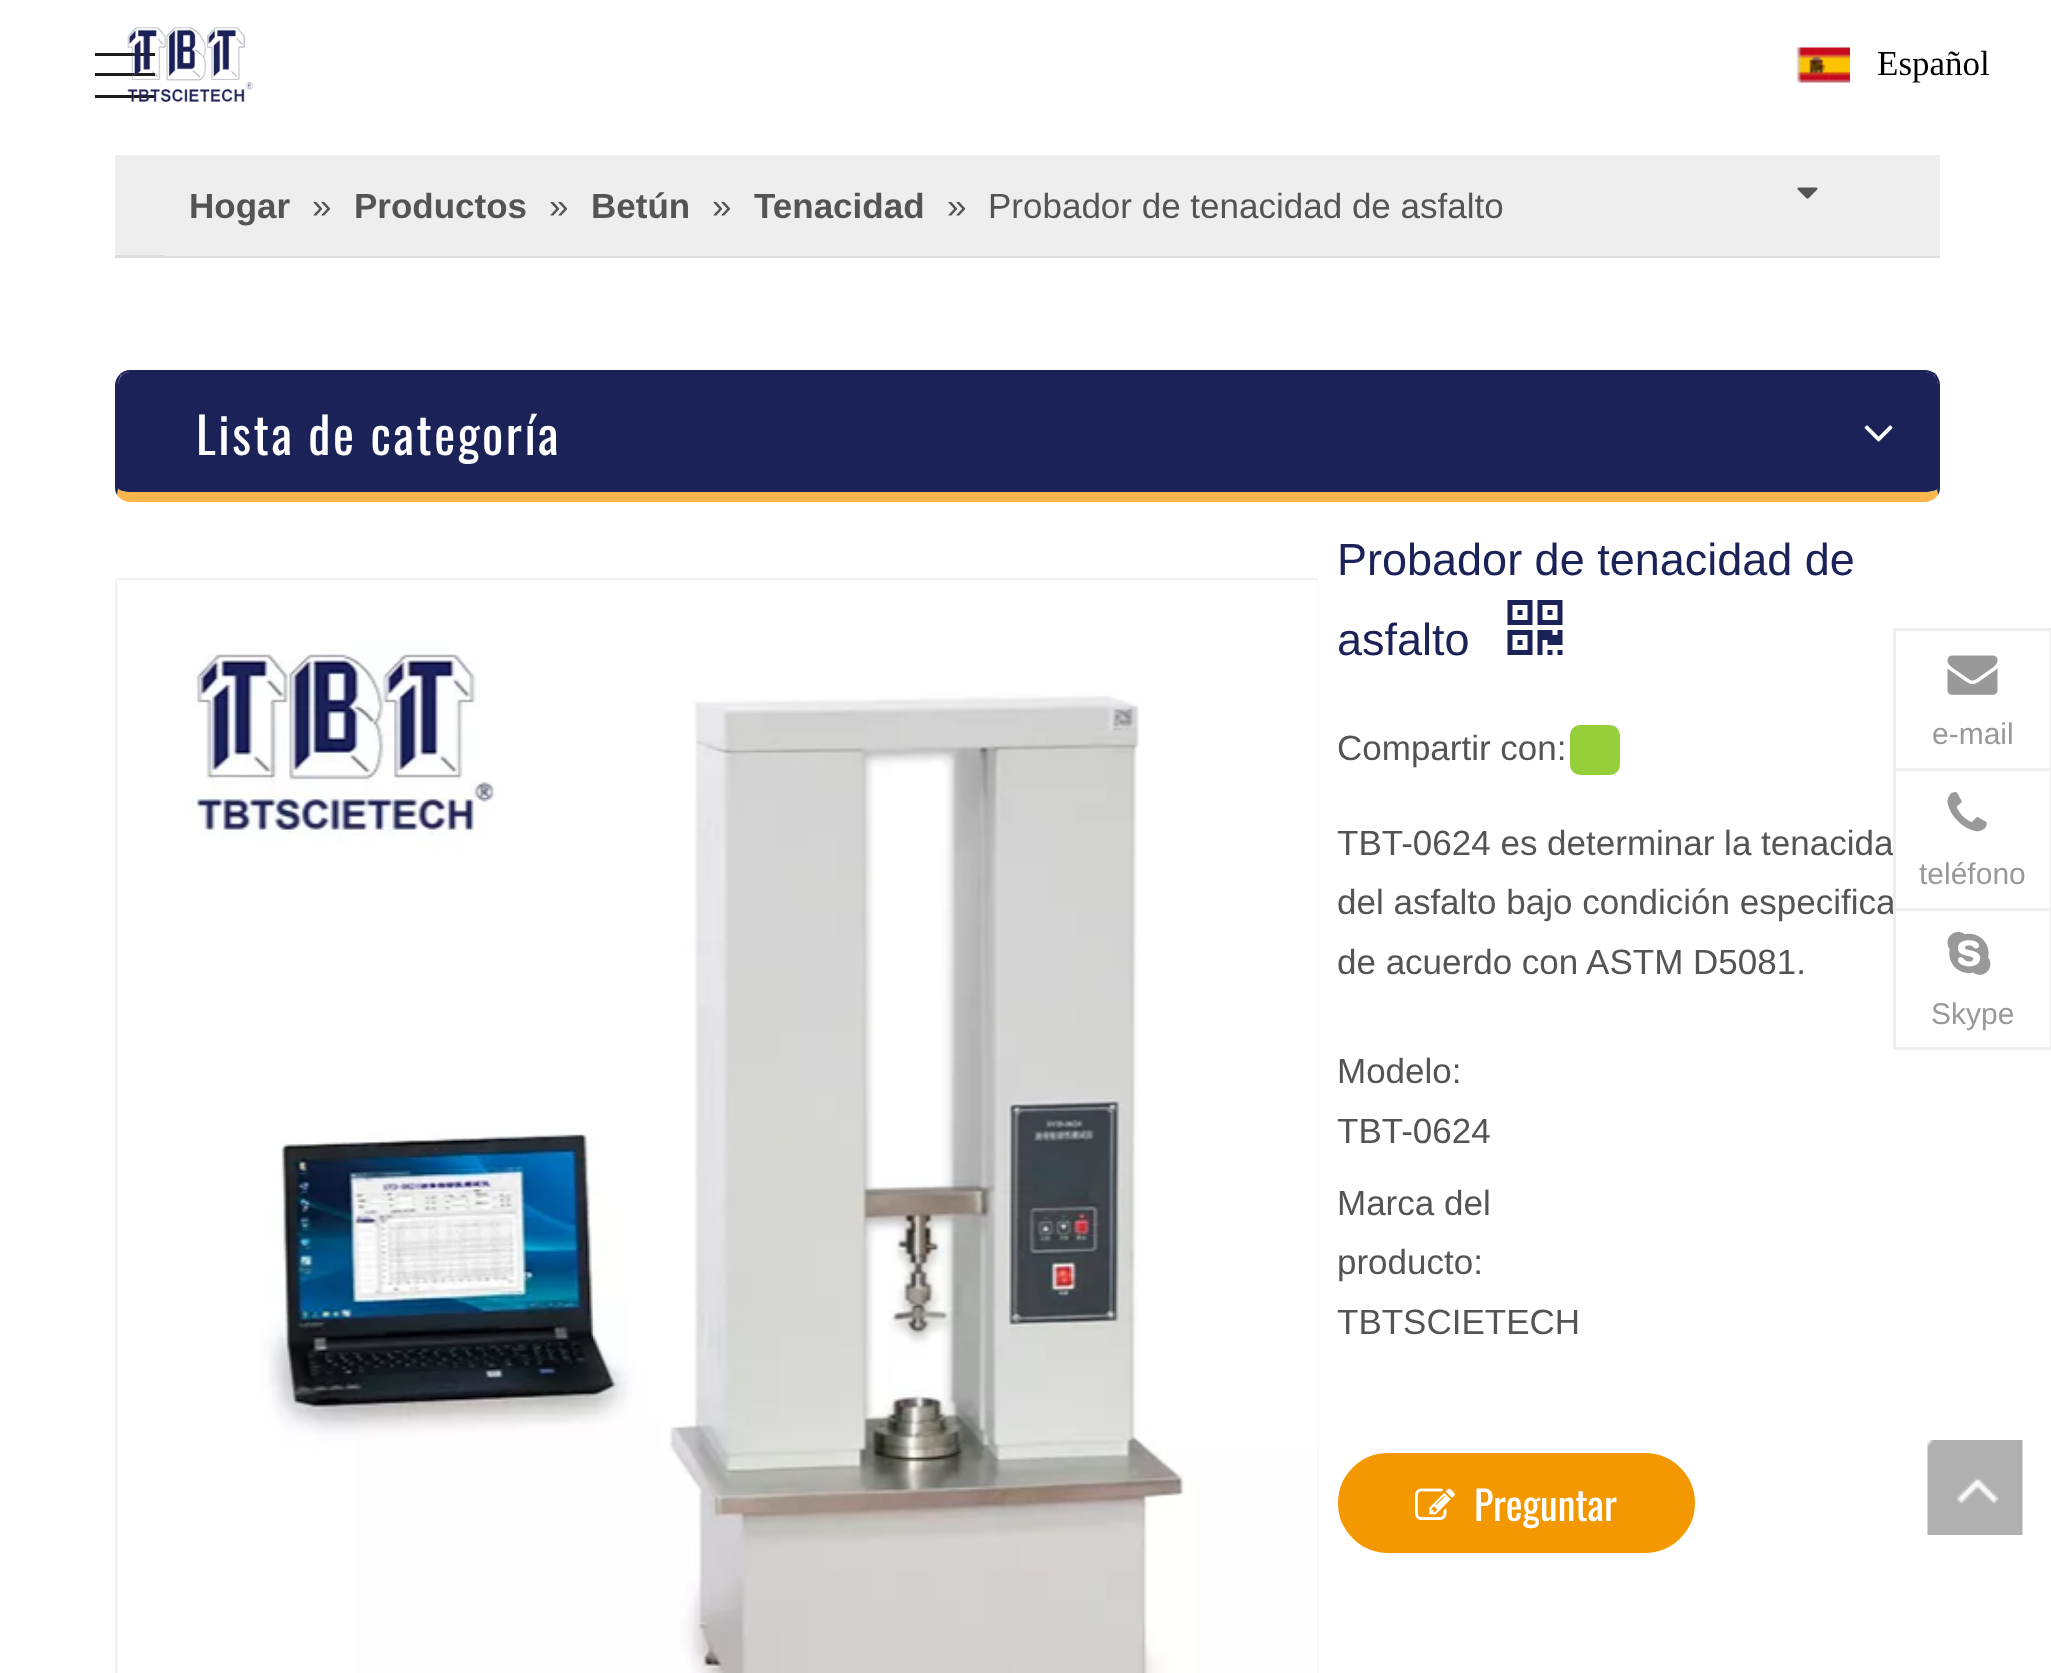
<svg xmlns="http://www.w3.org/2000/svg" width="2051" height="1673" viewBox="0 0 2051 1673">
  <style>
    .t1 { font: 35px Liberation Serif; fill: #000; }
    .t2 { font: bold 35px Liberation Sans; fill: #545454; }
    .t3 { font: 35px Liberation Sans; fill: #545454; }
    .t4 { font: 50px Oswald; letter-spacing: 2.5px; fill: #fff; }
    .t5 { font: 45px Liberation Sans; fill: #1a2258; }
    .t6 { font: 40px Oswald; fill: #fff; }
    .t7 { font: 30px Liberation Sans; fill: #999; }
  </style>
  <defs>
    <clipPath id="clip1"><rect x="115" y="578" width="1203" height="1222"/></clipPath>
  </defs>
  <rect width="100%" height="100%" fill="#fff"/>
  <rect x="95" y="53" width="60" height="3" fill="#1c1c1c"/>
  <rect x="95" y="73" width="60" height="3" fill="#1c1c1c"/>
  <rect x="95" y="95" width="60" height="3" fill="#1c1c1c"/>
  <image x="127" y="27" width="126" height="75" href="images/1.png"/>
  <image x="1796" y="47" width="54" height="36" href="images/2.png"/>
  <text x="1877" y="75" class="t1">Español</text>
  <rect x="115" y="155" width="1825" height="100" fill="#eee"/>
  <image x="1797" y="187" width="21" height="12" href="images/3.png"/>
  <rect x="115" y="255" width="1825" height="3" fill="#ddd"/>
  <rect x="165" y="255" width="1775" height="1" fill="#eee"/>
  <text x="189" y="218" class="t2">Hogar</text>
  <text x="312" y="218" class="t3">»</text>
  <text x="354" y="218" class="t2">Productos</text>
  <text x="549" y="218" class="t3">»</text>
  <text x="591" y="218" class="t2">Betún</text>
  <text x="712" y="218" class="t3">»</text>
  <text x="754" y="218" class="t2">Tenacidad</text>
  <text x="947" y="218" class="t3">»</text>
  <text x="988" y="218" class="t3">Probador de tenacidad de asfalto</text>
  <path d="M130 372H1925C1932 372 1938 378 1938 385V488C1938 490 1932 492 1925 492H130C123 492 118 490 118 488V385C118 378 123 372 130 372Z" fill="#1a2258"/>
  <path d="M130 370C126 370 122 372 120 374L121 376C123 374 126 372 130 372H1925C1928 372 1932 374 1934 376L1936 374C1933 372 1929 370 1925 370Z" fill="#1a2258"/>
  <path d="M1940 488V385C1940 381 1938 377 1936 374L1934 376C1936 378 1938 382 1938 385V488L1937 490L1938 495C1939 493 1940 491 1940 488Z" fill="#1a2258"/>
  <path d="M1938 495C1935 499 1930 502 1925 502H130C125 502 120 499 117 495L118 489C120 491 124 492 130 492H1925C1930 492 1935 491 1937 490Z" fill="#fbb54d"/>
  <path d="M115 385V488C115 491 116 493 117 495L118 489V488V385C118 382 119 378 121 376L120 374C117 377 115 381 115 385Z" fill="#1a2258"/>
  <text x="196" y="455" class="t4">Lista de categoría</text>
  <image x="1864" y="425" width="29" height="17" href="images/4.png"/>
  <g clip-path="url(#clip1)">
    <rect x="116.5" y="579.5" width="1202" height="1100" rx="3.5" fill="none" stroke="#efefef" stroke-width="3"/>
  </g>
  <image x="117" y="580" width="1201" height="1093" href="images/5.png"/>
  <text x="1337" y="575" class="t5">Probador de tenacidad de</text>
  <text x="1337" y="655" class="t5">asfalto</text>
  <image x="1507" y="600" width="56" height="55" href="images/6.png"/>
  <text x="1337" y="760" class="t3">Compartir con:</text>
  <rect x="1570" y="725" width="50" height="50" rx="10" fill="#95d03a"/>
  <text x="1337" y="855" class="t3">TBT-0624 es determinar la tenacida</text>
  <text x="1337" y="914" class="t3">del asfalto bajo condición especifica</text>
  <text x="1337" y="974" class="t3">de acuerdo con ASTM D5081.</text>
  <text x="1337" y="1083" class="t3">Modelo:</text>
  <text x="1337" y="1143" class="t3">TBT-0624</text>
  <text x="1337" y="1215" class="t3">Marca del</text>
  <text x="1337" y="1274" class="t3">producto:</text>
  <text x="1337" y="1334" class="t3">TBTSCIETECH</text>
  <rect x="1339.5" y="1454.5" width="354" height="97" rx="48.5" fill="#f39800" stroke="#f39800" stroke-width="3"/>
  <image x="1415" y="1488" width="40" height="32" href="images/7.png"/>
  <text x="1474" y="1521" class="t6">Preguntar</text>
  <rect x="1893" y="628" width="158" height="3" fill="#eee"/>
  <rect x="2050" y="628" width="1" height="140" fill="#eee"/>
  <rect x="1893" y="628" width="3" height="140" fill="#eee"/>
  <image x="1947" y="655" width="51" height="40" href="images/8.png"/>
  <text x="1932" y="744" class="t7">e-mail</text>
  <rect x="1893" y="768" width="158" height="3" fill="#eee"/>
  <rect x="2050" y="768" width="1" height="140" fill="#eee"/>
  <rect x="1893" y="768" width="3" height="140" fill="#eee"/>
  <image x="1947" y="792" width="40" height="40" href="images/9.png"/>
  <text x="1919" y="884" class="t7">teléfono</text>
  <rect x="1894.5" y="909.5" width="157" height="139" fill="none" stroke="#eee" stroke-width="3"/>
  <image x="1947" y="932" width="44" height="43" href="images/10.png"/>
  <text x="1931" y="1024" class="t7">Skype</text>
  <image x="1927" y="1440" width="96" height="95" href="images/11.png"/>
</svg>
